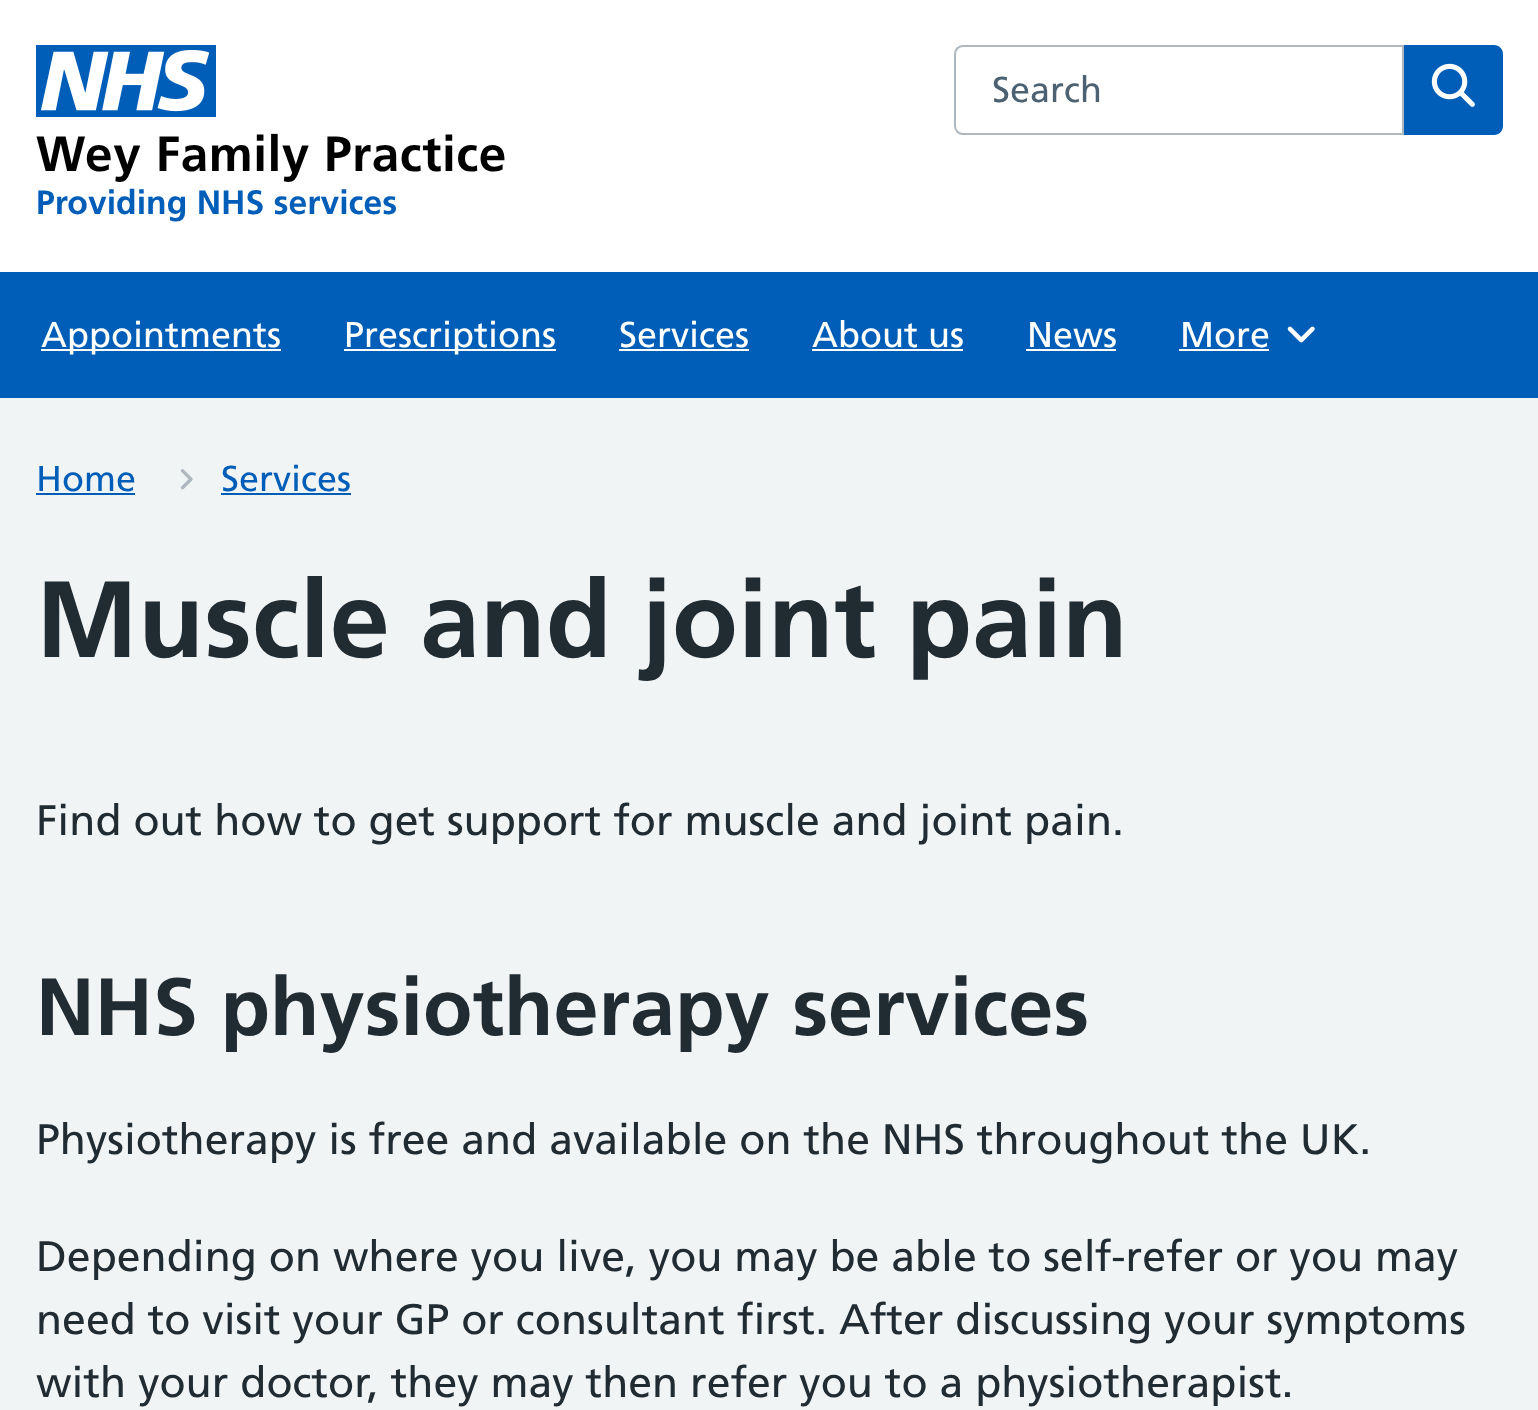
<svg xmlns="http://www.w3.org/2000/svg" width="1538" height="1410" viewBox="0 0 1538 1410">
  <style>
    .t1 { font: 36px Frutiger; fill: #4c6272; }
    .t2 { font: bold 49.5px Frutiger; letter-spacing: 0.5px; fill: #000; }
    .t3 { font: bold 33.75px Frutiger; fill: #005eb8; }
    .t4 { font: 36px Frutiger; fill: #fff; }
    .t5 { font: 36px Frutiger; fill: #005eb8; }
    .t6 { font: bold 108px Frutiger; fill: #212b32; }
    .t7 { font: 42.75px Frutiger; fill: #212b32; }
    .t8 { font: bold 81px Frutiger; fill: #212b32; }
  </style>
  <rect width="100%" height="100%" fill="#f0f4f5"/>
  <rect x="0" y="0" width="1538" height="272" fill="#fff"/>
  <path d="M963 46H1403V134H963C958.5 134 955 130.5 955 126V54C955 49.5 958.5 46 963 46Z" fill="none" stroke="#aeb7bd" stroke-width="2"/>
  <text x="992" y="102" class="t1">Search</text>
  <path d="M1404 45H1494C1499 45 1503 49 1503 54V126C1503 131 1499 135 1494 135H1404Z" fill="#005eb8"/>
  <image x="1431" y="63" width="44" height="44" href="images/1.png"/>
  <image x="36" y="45" width="180" height="72" href="images/2.png"/>
  <text x="36" y="171" class="t2">Wey Family Practice</text>
  <text x="36" y="214" class="t3">Providing NHS services</text>
  <rect x="0" y="272" width="1538" height="126" fill="#005eb8"/>
  <rect x="41" y="349" width="240" height="2" fill="#fff"/>
  <text x="41" y="347" class="t4">Appointments</text>
  <rect x="344" y="349" width="212" height="2" fill="#fff"/>
  <text x="344" y="347" class="t4">Prescriptions</text>
  <text x="619" y="347" class="t4">Services</text>
  <rect x="619" y="349" width="130" height="2" fill="#fff"/>
  <text x="812" y="347" class="t4">About us</text>
  <rect x="812" y="349" width="151" height="2" fill="#fff"/>
  <text x="1027" y="347" class="t4">News</text>
  <rect x="1026" y="349" width="90" height="2" fill="#fff"/>
  <text x="1180" y="347" class="t4">More</text>
  <rect x="1179" y="349" width="90" height="2" fill="#fff"/>
  <image x="1287" y="326" width="28" height="17" href="images/3.png"/>
  <text x="36" y="491" class="t5">Home</text>
  <rect x="36" y="493" width="99" height="2" fill="#005eb8"/>
  <image x="180" y="469" width="13" height="21" href="images/4.png"/>
  <text x="221" y="491" class="t5">Services</text>
  <rect x="221" y="493" width="130" height="2" fill="#005eb8"/>
  <text x="36" y="657" class="t6">Muscle and joint pain</text>
  <text x="36" y="835" class="t7">Find out how to get support for muscle and joint pain.</text>
  <text x="36" y="1035" class="t8">NHS physiotherapy services</text>
  <text x="36" y="1154" class="t7">Physiotherapy is free and available on the NHS throughout the UK.</text>
  <text x="36" y="1271" class="t7">Depending on where you live, you may be able to self-refer or you may</text>
  <text x="36" y="1334" class="t7">need to visit your GP or consultant first. After discussing your symptoms</text>
  <text x="36" y="1397" class="t7">with your doctor, they may then refer you to a physiotherapist.</text>
</svg>
